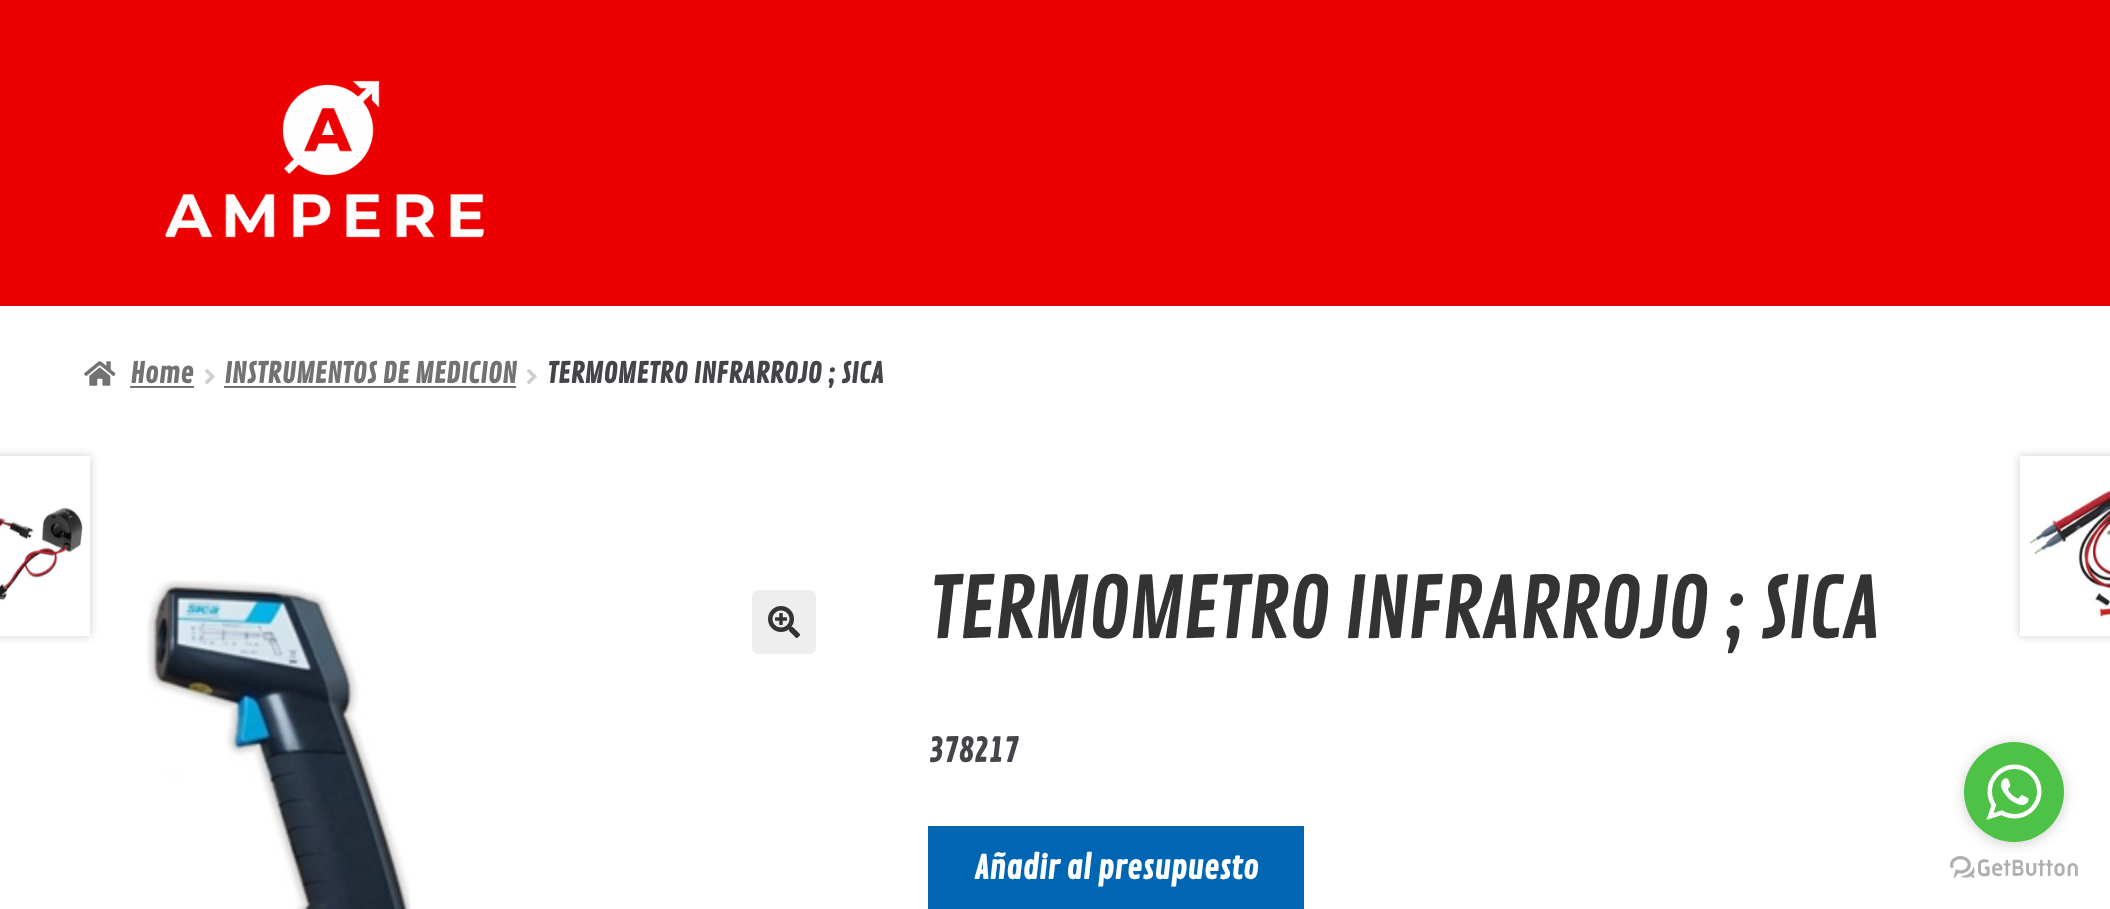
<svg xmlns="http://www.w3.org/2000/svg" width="2110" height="909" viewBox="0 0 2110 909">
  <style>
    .t1 { font: bold 28px Contrail One; fill: #727272; }
    .t2 { font: bold 28px Contrail One; fill: #43454b; }
    .t3 { font: 83.75px Contrail One; letter-spacing: -2px; fill: #333; }
    .t4 { font: bold 32px Contrail One; fill: #43454b; }
    .t5 { font: bold 32px Contrail One; fill: #fff; }
  </style>
  <defs>
    <clipPath id="clip1"><path d="M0 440H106V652H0ZM-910 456H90V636H-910Z" clip-rule="evenodd"/></clipPath>
    <clipPath id="clip2"><path d="M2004 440H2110V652H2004ZM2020 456H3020V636H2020Z" clip-rule="evenodd"/></clipPath>
  </defs>
  <rect width="100%" height="100%" fill="#fff"/>
  <rect x="0" y="0" width="2110" height="304" fill="#ec0002"/>
  <rect x="0" y="304" width="2110" height="2" fill="#d00"/>
  <image x="165" y="80" width="319" height="158" href="images/1.png"/>
  <image x="84" y="361" width="32" height="25" href="images/2.png"/>
  <text x="130" y="383" class="t1">Home</text>
  <rect x="130" y="386" width="64" height="2" fill="#727272"/>
  <image x="205" y="369" width="10" height="16" href="images/3.png"/>
  <text x="224" y="383" class="t1">INSTRUMENTOS DE MEDICION</text>
  <rect x="224" y="386" width="292" height="2" fill="#727272"/>
  <image x="527" y="369" width="10" height="16" href="images/3.png"/>
  <text x="547" y="383" class="t2">TERMOMETRO INFRARROJO ; SICA</text>
  <g clip-path="url(#clip1)">
    <rect x="-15" y="456" width="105" height="180" fill="#00000033" filter="blur(5px)"/>
  </g>
  <image x="0" y="507" width="83" height="94" href="images/4.png"/>
  <g clip-path="url(#clip2)">
    <rect x="2020" y="456" width="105" height="180" fill="#00000033" filter="blur(5px)"/>
  </g>
  <image x="2029" y="488" width="81" height="130" href="images/5.png"/>
  <image x="146" y="580" width="265" height="329" href="images/6.png"/>
  <rect x="752" y="590" width="64" height="64" rx="6" fill="#eee"/>
  <image x="768" y="606" width="32" height="32" href="images/7.png"/>
  <text x="928" y="638" class="t3">TERMOMETRO INFRARROJO ; SICA</text>
  <text x="928" y="762" class="t4">378217</text>
  <rect x="928" y="826" width="376" height="83" fill="#0066b4"/>
  <text x="974" y="879" class="t5">Añadir al presupuesto</text>
  <image x="1950" y="856" width="128" height="22" href="images/9.png"/>
  <rect x="1964" y="744" width="100" height="100" rx="50" fill="#88888866" filter="blur(7px)"/>
  <circle cx="2014" cy="792" r="50" fill="#4dc247"/>
  <image x="1986" y="764" width="56" height="56" href="images/8.png"/>
</svg>
